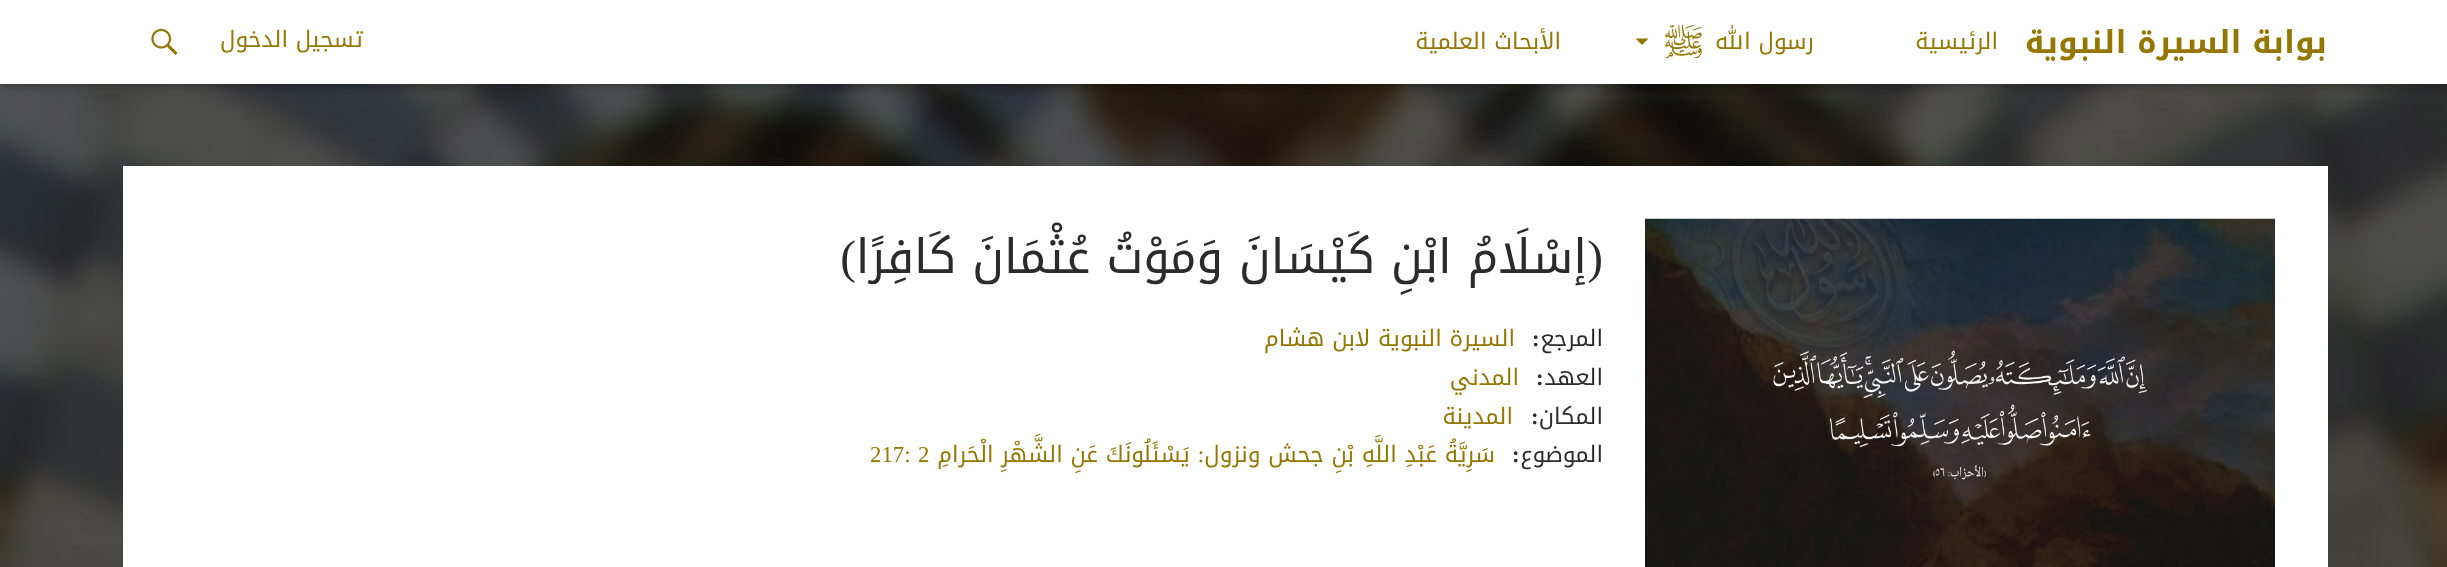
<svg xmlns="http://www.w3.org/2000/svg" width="2447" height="567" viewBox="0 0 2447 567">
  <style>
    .t1 { font: bold 31.5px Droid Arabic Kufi; direction: rtl; fill: #947600; }
    .t2 { font: 22.75px Droid Arabic Kufi; direction: rtl; fill: #947600; }
    .t3 { font: 47.25px Liberation Serif; direction: rtl; fill: #2b2b2b; }
    .t4 { font: 47.25px Droid Arabic Kufi; direction: rtl; fill: #2b2b2b; }
    .t5 { font: 22.75px Droid Arabic Kufi; direction: rtl; fill: #2b2b2b; }
    .t6 { font: bold 22.75px Liberation Serif; fill: #2b2b2b; }
    .t7 { font: 22.75px Liberation Serif; direction: rtl; fill: #947600; }
    .t8 { font: 22.75px Liberation Serif; fill: #947600; }
  </style>
  <rect width="100%" height="100%" fill="#fff"/>
  <image x="0" y="84" width="2447" height="483" href="images/4.png"/>
  <rect x="0" y="2" width="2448" height="84" fill="#0000004d" filter="blur(4.5px)"/>
  <rect x="0" y="0" width="2447" height="84" fill="#fff"/>
  <text x="2327" y="53" class="t1">بوابة السيرة النبوية</text>
  <text x="1998" y="49" class="t2">الرئيسية</text>
  <text x="1814" y="49" class="t2">رسول الله</text>
  <image x="1665" y="24" width="37" height="35" href="images/1.png"/>
  <path d="M1635.5 38.5L1642 45L1648.5 38.5Z" fill="#947600"/>
  <text x="1561" y="49" class="t2">الأبحاث العلمية</text>
  <text x="363" y="47" class="t2">تسجيل الدخول</text>
  <image x="151" y="28" width="27" height="27" href="images/2.png"/>
  <rect x="123" y="166" width="2205" height="401" fill="#fff"/>
  <image x="1645" y="218" width="630" height="349" href="images/3.png"/>
  <text x="1603" y="273" class="t3">(</text>
  <text x="1587" y="273" class="t4">إسْلَامُ ابْنِ كَيْسَانَ وَمَوْتُ عُثْمَانَ كَافِرًا</text>
  <text x="856" y="273" class="t3">)</text>
  <text x="1603" y="346" class="t5">المرجع</text>
  <text x="1532" y="346" class="t6">:</text>
  <text x="1515" y="346" class="t2">السيرة النبوية لابن هشام</text>
  <text x="1603" y="385" class="t5">العهد</text>
  <text x="1536" y="385" class="t6">:</text>
  <text x="1519" y="385" class="t2">المدني</text>
  <text x="1603" y="424" class="t5">المكان</text>
  <text x="1531" y="424" class="t6">:</text>
  <text x="1513" y="424" class="t2">المدينة</text>
  <text x="1603" y="462" class="t5">الموضوع</text>
  <text x="1512" y="462" class="t6">:</text>
  <text x="1495" y="462" class="t2">سَرِيَّةُ عَبْدِ اللَّهِ بْنِ جحش ونزول</text>
  <text x="1204" y="462" class="t7">:</text>
  <text x="1190" y="462" class="t2">يَسْئَلُونَكَ عَنِ الشَّهْرِ الْحَرامِ</text>
  <text x="918" y="462" class="t8">2</text>
  <text x="870" y="462" class="t8">217:</text>
</svg>
